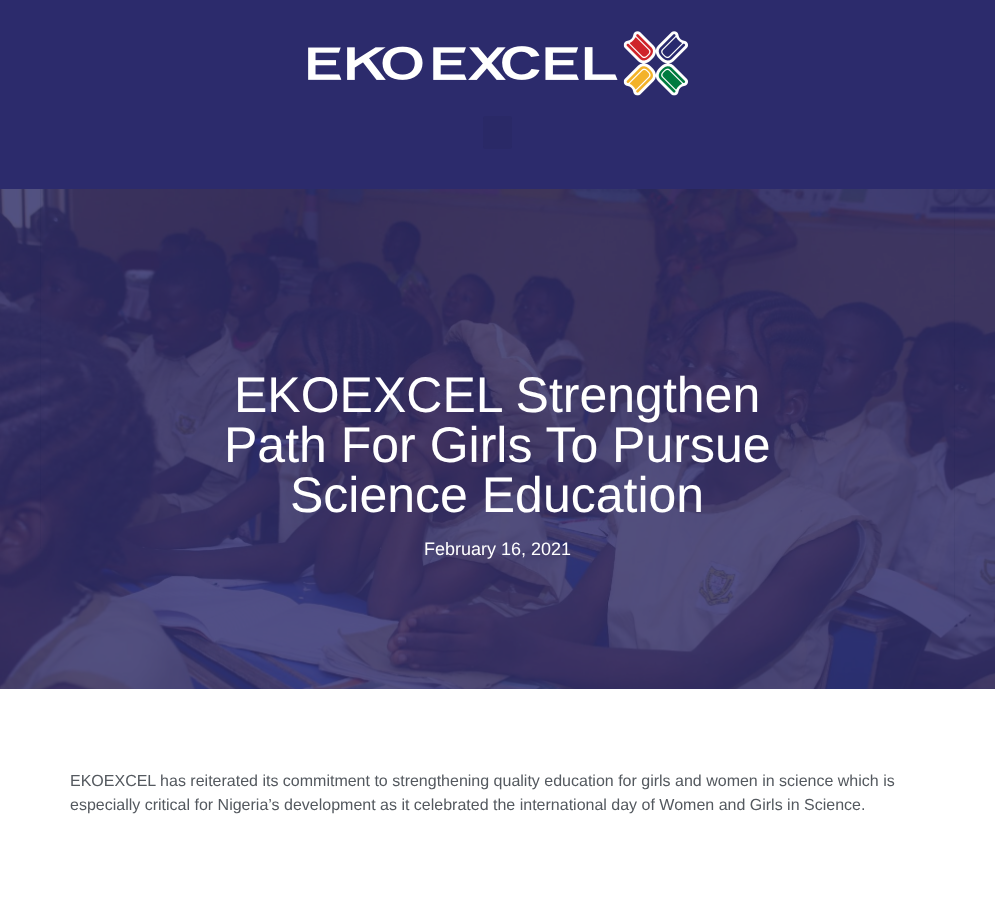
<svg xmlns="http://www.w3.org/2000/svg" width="995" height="919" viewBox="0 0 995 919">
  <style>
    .t1 { font: 50px Liberation Sans; fill: #fff; }
    .t2 { font: 18px Liberation Sans; fill: #fff; }
    .t3 { font: 16px Liberation Sans; fill: #54595f; }
  </style>
  <rect width="100%" height="100%" fill="#fff"/>
  <rect x="0" y="0" width="995" height="189" fill="#2c2b6c"/>
  <image x="308" y="31" width="380" height="65" href="images/1.png"/>
  <rect x="483" y="116" width="29" height="33" rx="3" fill="#2a2967"/>
  <image x="0" y="189" width="995" height="500" href="images/2.png"/>
  <rect x="954" y="189" width="1" height="412" fill="#0116400d"/>
  <rect x="40" y="189" width="1" height="360" fill="#0116400d"/>
  <text x="234" y="412" class="t1">EKOEXCEL Strengthen</text>
  <text x="224" y="462" class="t1">Path For Girls To Pursue</text>
  <text x="290" y="512" class="t1">Science Education</text>
  <text x="424" y="555" class="t2">February 16, 2021</text>
  <text x="70" y="786" class="t3">EKOEXCEL has reiterated its commitment to strengthening quality education for girls and women in science which is</text>
  <text x="70" y="810" class="t3">especially critical for Nigeria’s development as it celebrated the international day of Women and Girls in Science.</text>
</svg>
